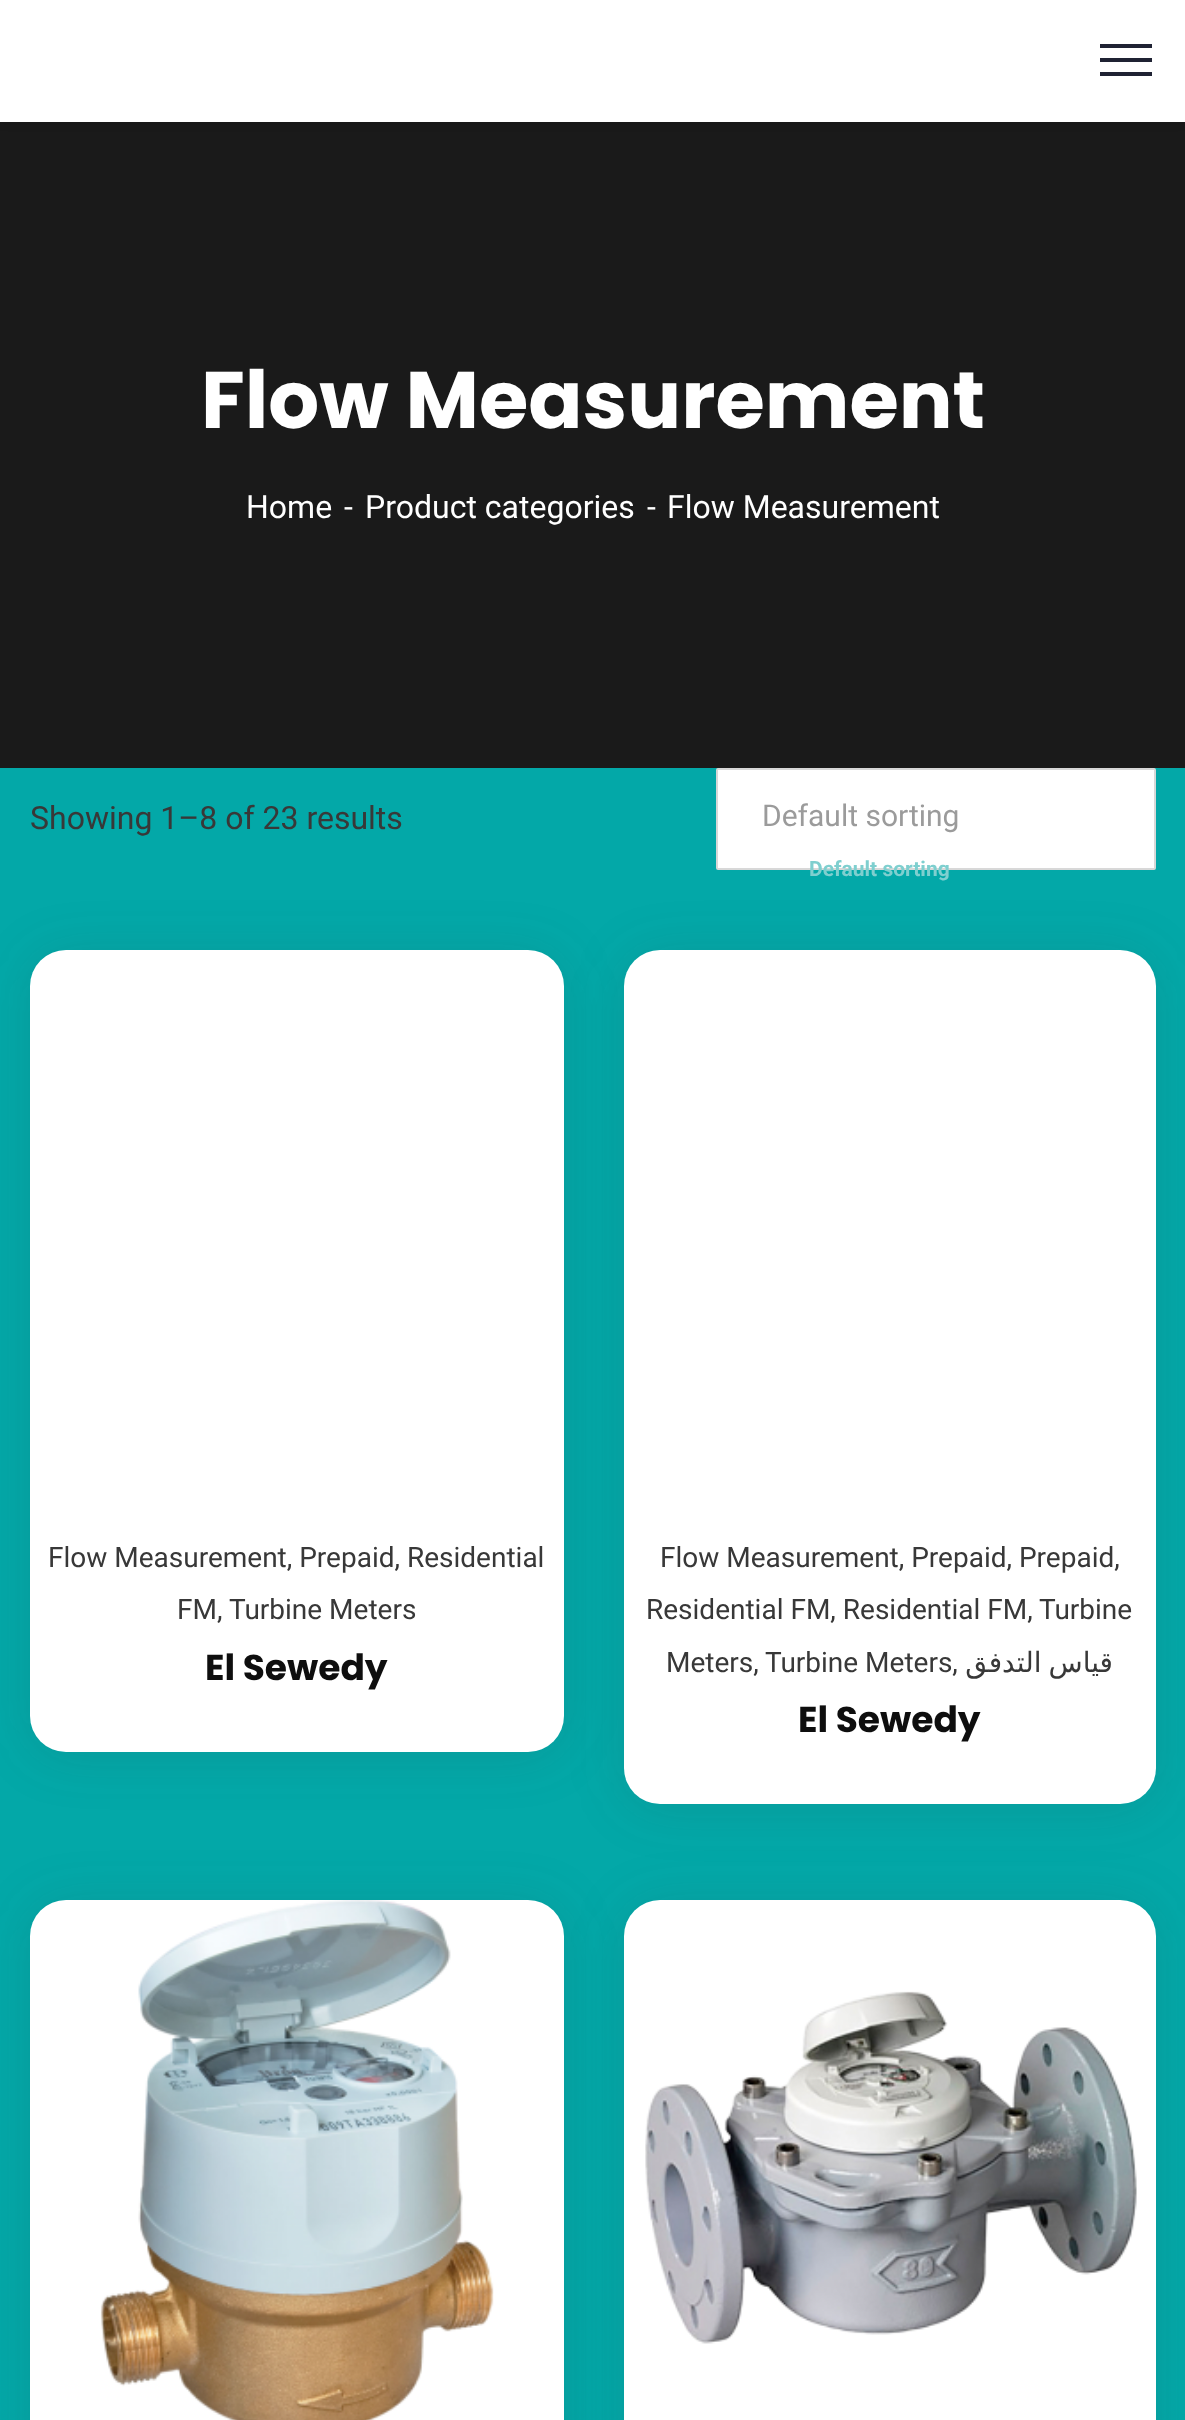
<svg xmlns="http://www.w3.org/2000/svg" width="1185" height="2420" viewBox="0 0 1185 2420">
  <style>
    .t1 { font: bold 80px Poppins; fill: #fff; }
    .t2 { font: 32px Roboto; fill: #fff; }
    .t3 { font: 32px Roboto; fill: #383838; }
    .t4 { font: 30px Roboto; fill: #9b9b9b; }
    .t5 { font: bold 21px Roboto; fill: #7fcfcf; }
    .t6 { font: 28px Roboto; fill: #383838; }
    .t7 { font: bold 36px Poppins; fill: #0e0e0e; }
    .t8 { font: 28px DejaVu Sans; direction: rtl; fill: #383838; }
  </style>
  <rect width="100%" height="100%" fill="#03a8a8"/>
  <rect x="0" y="122" width="1185" height="646" fill="#1a1a1a"/>
  <rect x="0" y="0" width="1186" height="122" fill="#00000026" filter="blur(5px)"/>
  <rect x="0" y="0" width="1185" height="122" fill="#fff"/>
  <rect x="1100" y="44" width="52" height="4" fill="#1f2233"/>
  <rect x="1100" y="58" width="52" height="4" fill="#1f2233"/>
  <rect x="1100" y="72" width="52" height="4" fill="#1f2233"/>
  <text x="201" y="428" class="t1">Flow Measurement</text>
  <text x="246" y="518" class="t2">Home</text>
  <text x="344" y="518" class="t2">-</text>
  <text x="365" y="518" class="t2">Product categories</text>
  <text x="647" y="518" class="t2">-</text>
  <text x="667" y="518" class="t2">Flow Measurement</text>
  <text x="30" y="829" class="t3">Showing 1–8 of 23 results</text>
  <rect x="717" y="769" width="438" height="100" rx="1" fill="#fff" stroke="#d8d8d8" stroke-width="2"/>
  <text x="762" y="826" class="t4">Default sorting</text>
  <rect x="30" y="954" width="534" height="802" rx="36" fill="#36363621" filter="blur(27px)"/>
  <rect x="30" y="950" width="534" height="802" rx="36" fill="#fff"/>
  <rect x="624" y="954" width="532" height="854" rx="36" fill="#36363621" filter="blur(27px)"/>
  <text x="809" y="876" class="t5">Default sorting</text>
  <text x="48" y="1567" class="t6">Flow Measurement, Prepaid, Residential</text>
  <text x="177" y="1619" class="t6">FM,</text>
  <text x="229" y="1619" class="t6">Turbine Meters</text>
  <text x="205" y="1680" class="t7">El Sewedy</text>
  <rect x="624" y="950" width="532" height="854" rx="36" fill="#fff"/>
  <text x="660" y="1567" class="t6">Flow Measurement, Prepaid, Prepaid,</text>
  <text x="646" y="1619" class="t6">Residential FM, Residential FM,</text>
  <text x="1039" y="1619" class="t6">Turbine</text>
  <text x="666" y="1672" class="t6">Meters,</text>
  <text x="765" y="1672" class="t6">Turbine Meters,</text>
  <text x="1113" y="1672" word-spacing="-2" class="t8">قياس التدفق</text>
  <text x="798" y="1732" class="t7">El Sewedy</text>
  <rect x="30" y="1904" width="534" height="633" rx="36" fill="#36363621" filter="blur(27px)"/>
  <rect x="30" y="1900" width="534" height="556" rx="36" fill="#fff"/>
  <image x="100" y="1900" width="394" height="520" href="images/1.png"/>
  <rect x="624" y="1904" width="532" height="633" rx="36" fill="#36363621" filter="blur(27px)"/>
  <rect x="624" y="1900" width="532" height="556" rx="36" fill="#fff"/>
  <image x="645" y="1991" width="492" height="353" href="images/2.png"/>
</svg>
